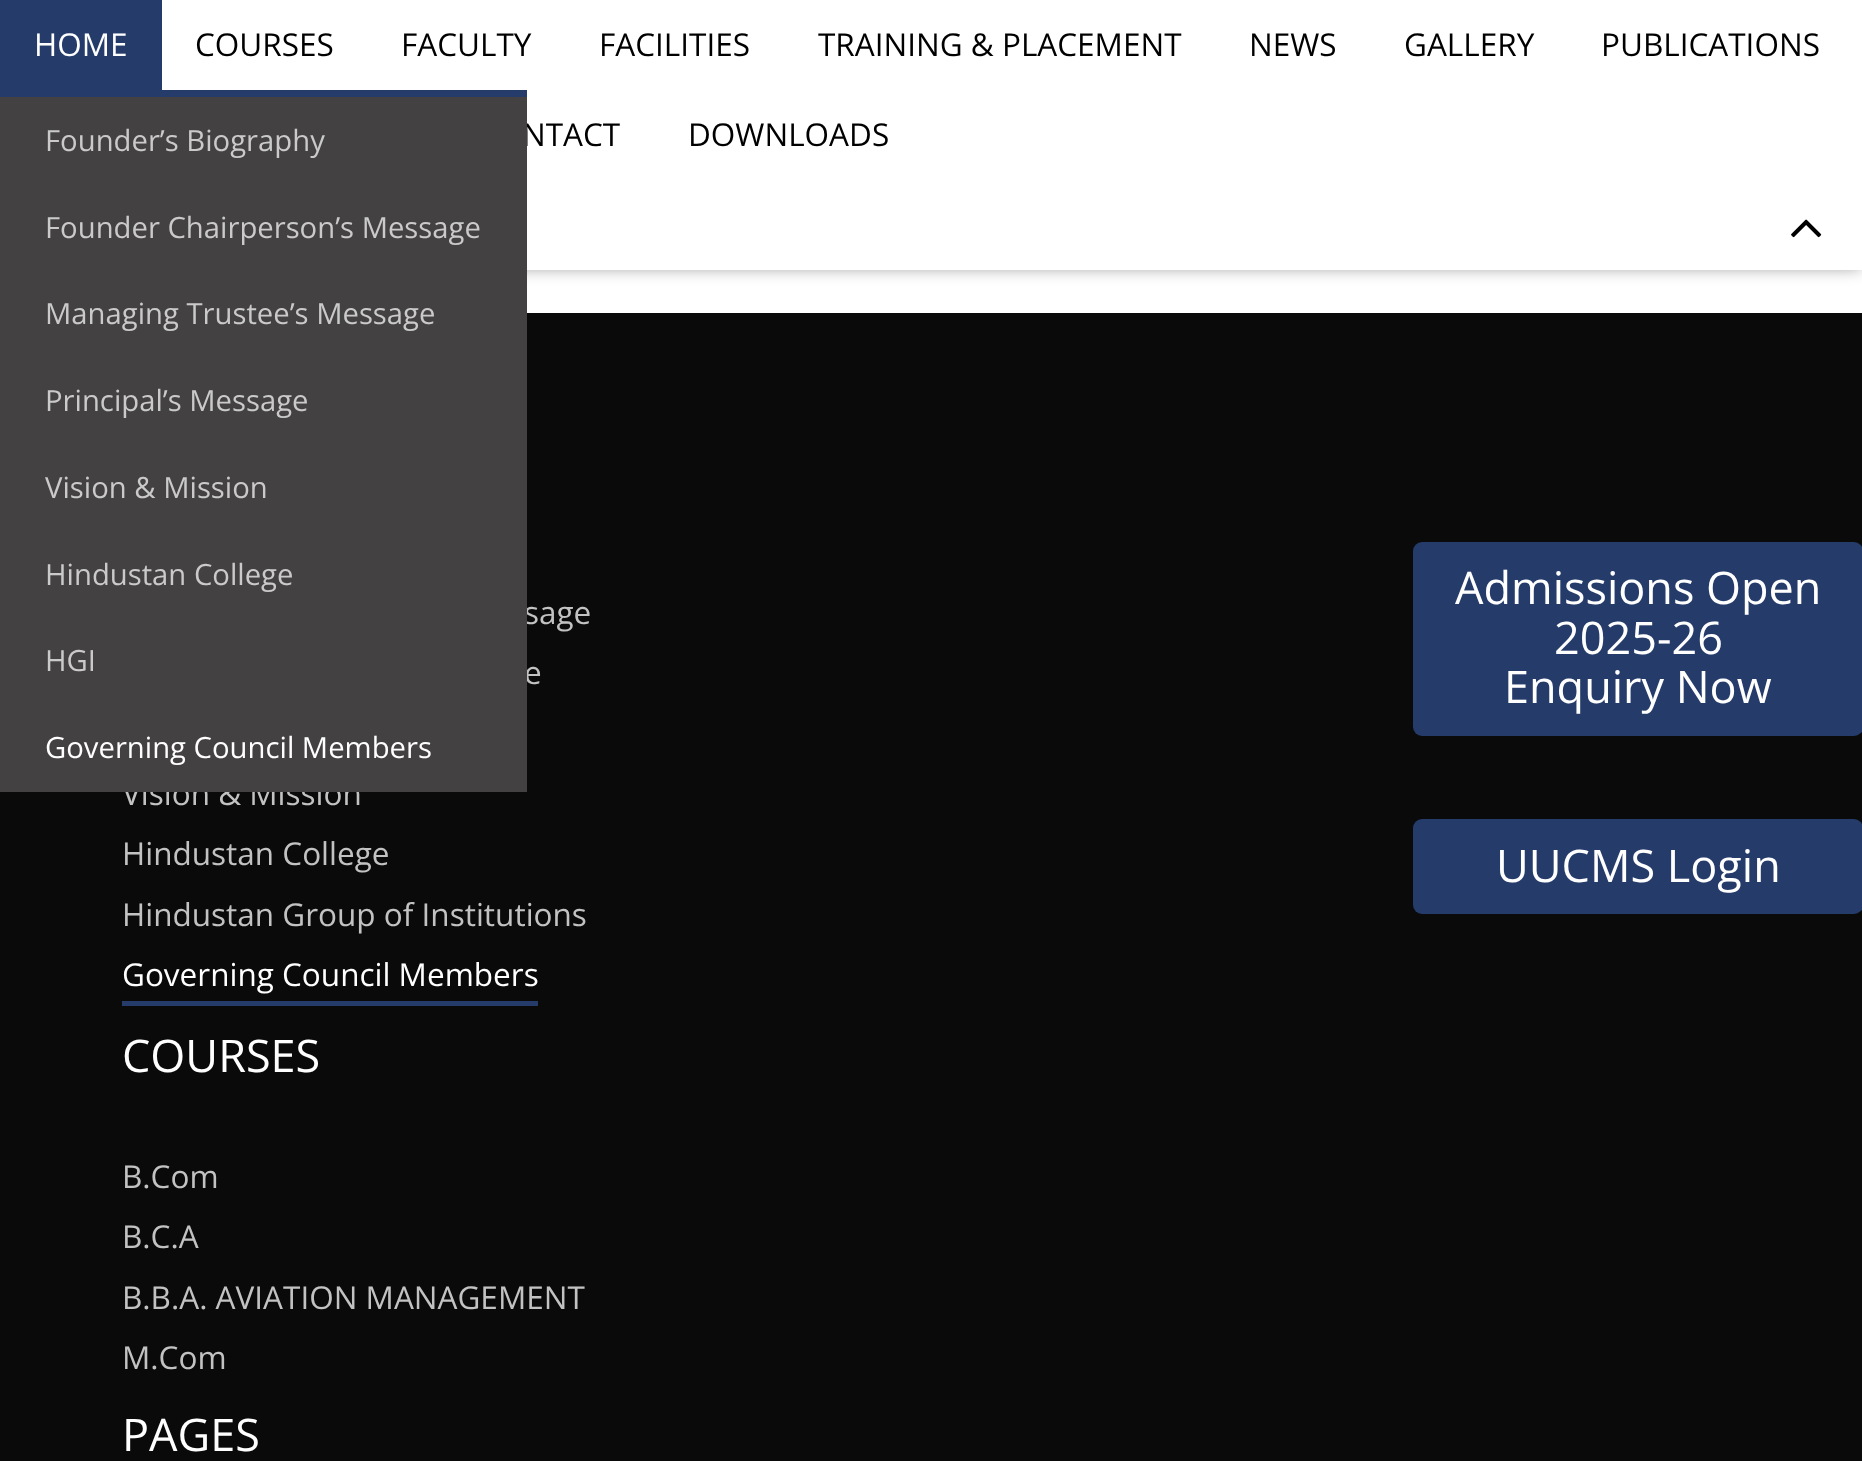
<svg xmlns="http://www.w3.org/2000/svg" width="1862" height="1461" viewBox="0 0 1862 1461">
  <style>
    .t1 { font: 31.5px Open Sans; fill: #fff; }
    .t2 { font: 31.5px Open Sans; fill: #000; }
    .t3 { font: 31.5px Open Sans; fill: #c2c2c2; }
    .t4 { font: 29.25px Open Sans; fill: #cacaca; }
    .t5 { font: 29.25px Open Sans; fill: #fff; }
    .t6 { font: 45px Open Sans; fill: #fff; }
  </style>
  <rect width="100%" height="100%" fill="#fff"/>
  <rect x="2" y="2" width="1859" height="266" fill="#00000066" filter="blur(8px)"/>
  <rect x="162" y="0" width="1700" height="270" fill="#fff"/>
  <rect x="0" y="0" width="162" height="90" fill="#253b6a"/>
  <text x="34" y="56" class="t1">HOME</text>
  <text x="522" y="146" class="t2">NTACT</text>
  <rect x="0" y="313" width="1862" height="1148" fill="#0a0a0a"/>
  <text x="524" y="624" class="t3">sage</text>
  <text x="524" y="684" class="t3">e</text>
  <text x="122" y="805" class="t3">Vision &amp; Mission</text>
  <rect x="0" y="97" width="527" height="695" fill="#444142"/>
  <rect x="0" y="90" width="527" height="7" fill="#253b6a"/>
  <text x="45" y="151" class="t4">Founder’s Biography</text>
  <text x="45" y="238" class="t4">Founder Chairperson’s Message</text>
  <text x="45" y="324" class="t4">Managing Trustee’s Message</text>
  <text x="45" y="411" class="t4">Principal’s Message</text>
  <text x="45" y="498" class="t4">Vision &amp; Mission</text>
  <text x="45" y="585" class="t4">Hindustan College</text>
  <text x="45" y="671" class="t4">HGI</text>
  <text x="45" y="758" class="t5">Governing Council Members</text>
  <text x="195" y="56" class="t2">COURSES</text>
  <text x="401" y="56" class="t2">FACULTY</text>
  <text x="599" y="56" class="t2">FACILITIES</text>
  <text x="818" y="56" class="t2">TRAINING &amp; PLACEMENT</text>
  <text x="1249" y="56" class="t2">NEWS</text>
  <text x="1404" y="56" class="t2">GALLERY</text>
  <text x="1601" y="56" class="t2">PUBLICATIONS</text>
  <text x="688" y="146" class="t2">DOWNLOADS</text>
  <image x="1791" y="219" width="31" height="19" href="images/1.png"/>
  <text x="122" y="865" class="t3">Hindustan College</text>
  <text x="122" y="926" class="t3">Hindustan Group of Institutions</text>
  <rect x="122" y="1001" width="416" height="5" fill="#253b6a"/>
  <text x="122" y="986" class="t1">Governing Council Members</text>
  <text x="122" y="1072" class="t6">COURSES</text>
  <text x="122" y="1188" class="t3">B.Com</text>
  <text x="122" y="1248" class="t3">B.C.A</text>
  <text x="122" y="1309" class="t3">B.B.A. AVIATION MANAGEMENT</text>
  <text x="122" y="1369" class="t3">M.Com</text>
  <text x="122" y="1451" class="t6">PAGES</text>
  <rect x="1413" y="542" width="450" height="194" rx="9" fill="#253b6a"/>
  <text x="1455" y="604" class="t6">Admissions Open</text>
  <text x="1554" y="654" class="t6">2025-26</text>
  <text x="1504" y="703" class="t6">Enquiry Now</text>
  <rect x="1413" y="819" width="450" height="95" rx="9" fill="#253b6a"/>
  <text x="1496" y="882" class="t6">UUCMS Login</text>
</svg>
